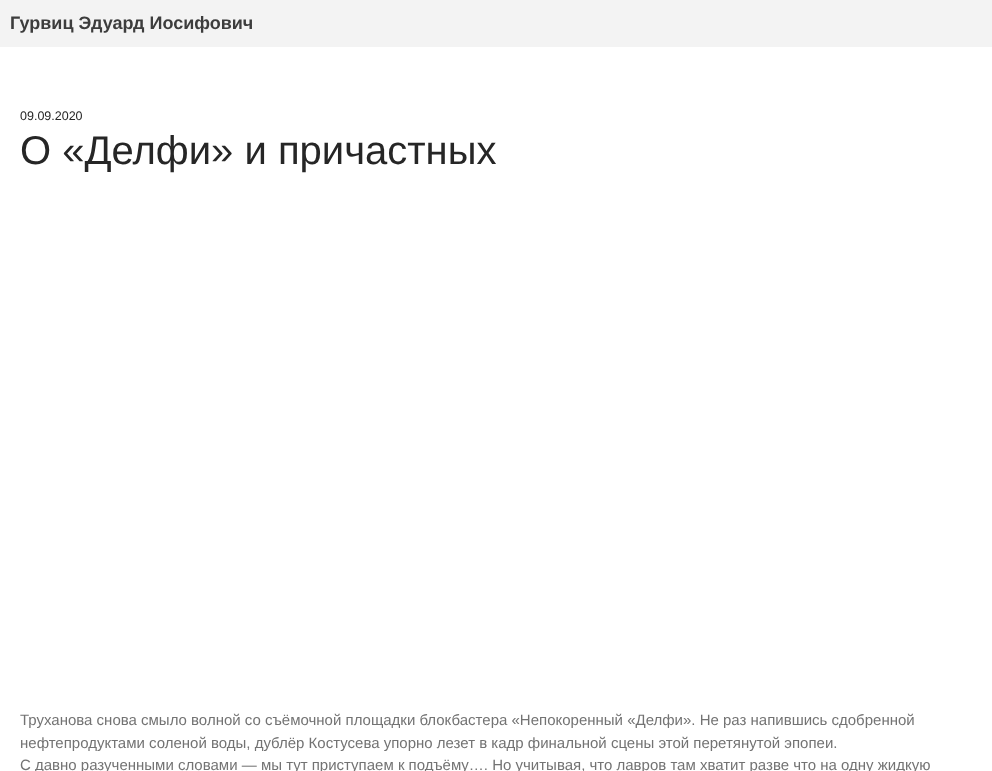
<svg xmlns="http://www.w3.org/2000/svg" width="992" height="771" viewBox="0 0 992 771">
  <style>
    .t1 { font: bold 18px Liberation Sans; fill: #3d3d3d; }
    .t2 { font: 12.5px Liberation Sans; fill: #262626; }
    .t3 { font: 40px Liberation Sans; fill: #262626; }
    .t4 { font: 15px Liberation Sans; fill: #737373; }
  </style>
  <rect width="100%" height="100%" fill="#fff"/>
  <rect x="0" y="0" width="992" height="47" fill="#f3f3f3"/>
  <text x="10" y="29" class="t1">Гурвиц Эдуард Иосифович</text>
  <text x="20" y="120" class="t2">09.09.2020</text>
  <text x="20" y="164" class="t3">О «Делфи» и причастных</text>
  <text x="20" y="725" class="t4">Труханова снова смыло волной со съёмочной площадки блокбастера «Непокоренный «Делфи». Не раз напившись сдобренной</text>
  <text x="20" y="748" class="t4">нефтепродуктами соленой воды, дублёр Костусева упорно лезет в кадр финальной сцены этой перетянутой эпопеи.</text>
  <text x="20" y="770" class="t4">С давно разученными словами — мы тут приступаем к подъёму…. Но учитывая, что лавров там хватит разве что на одну жидкую</text>
</svg>
